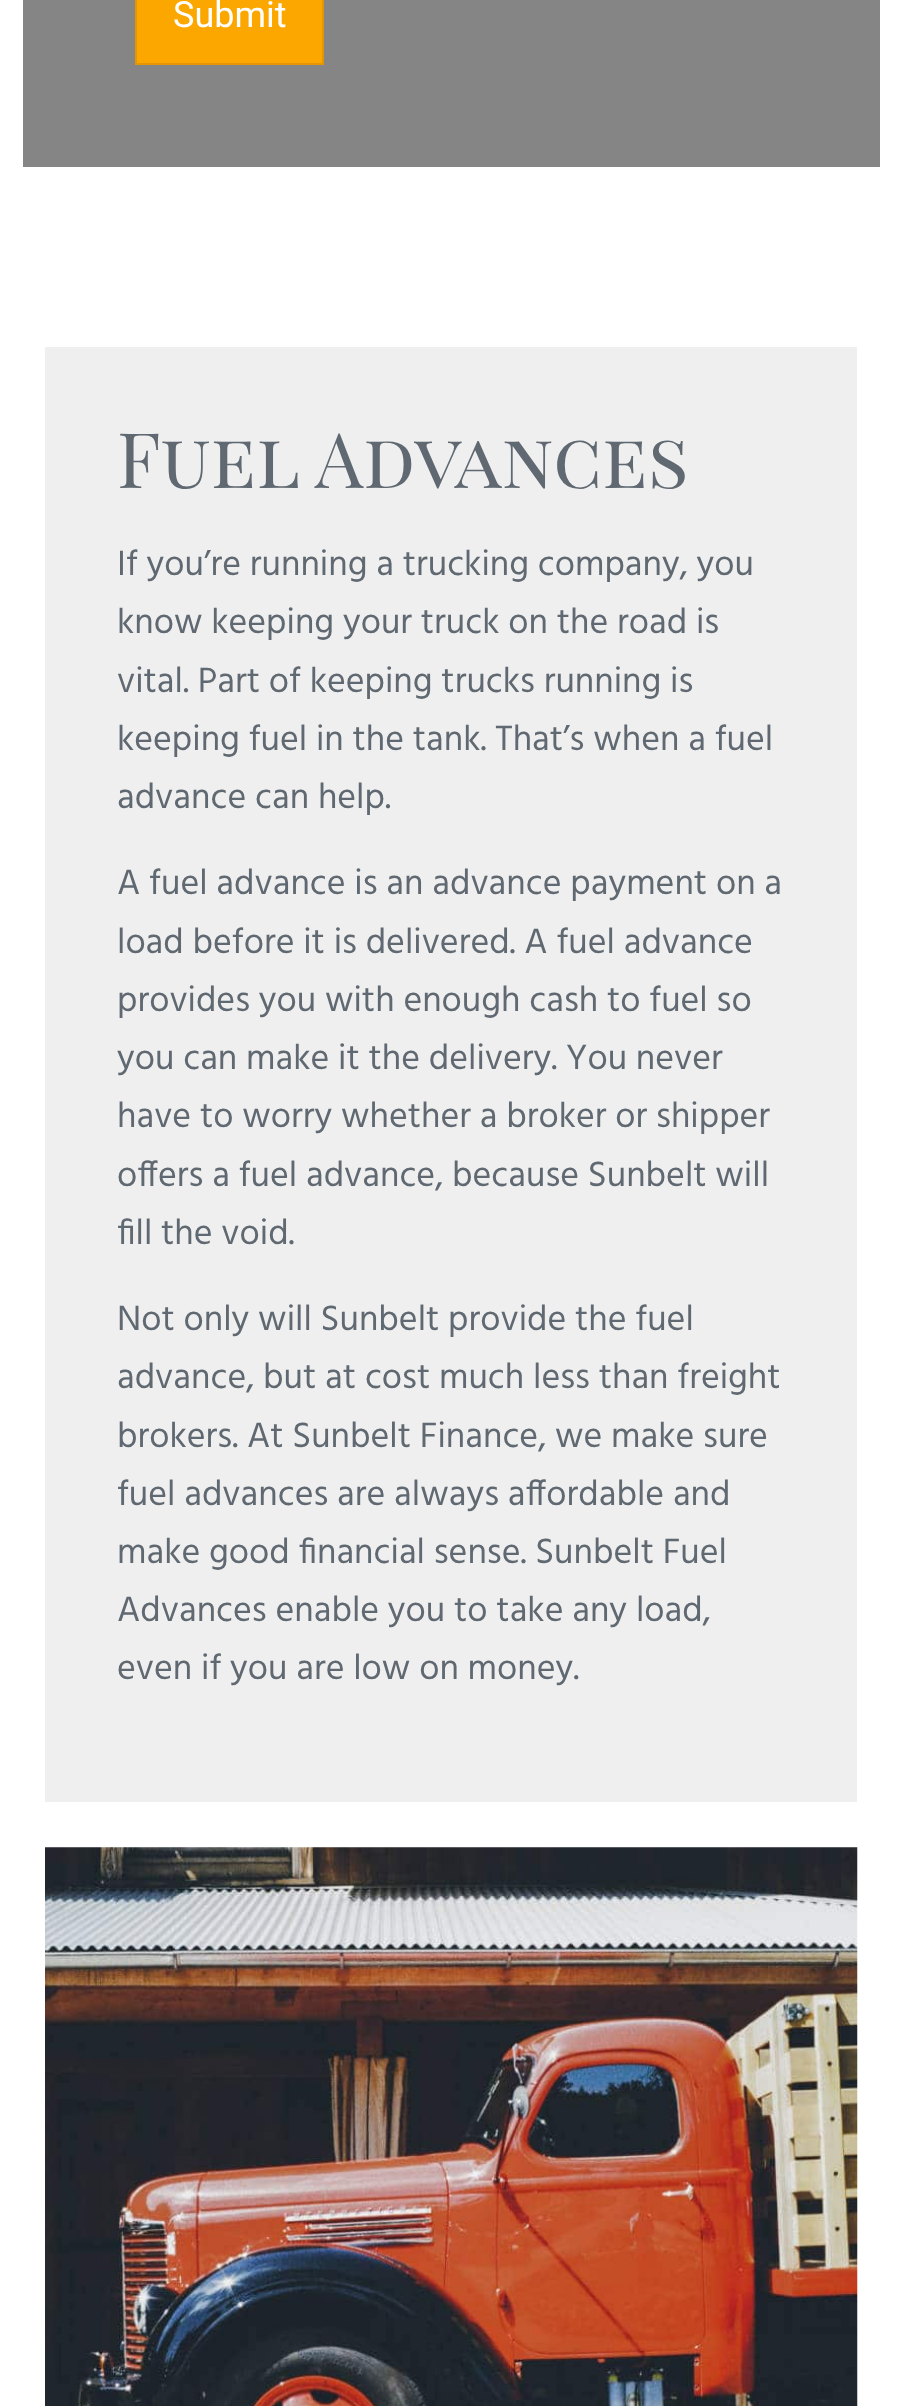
<svg xmlns="http://www.w3.org/2000/svg" width="902" height="2406" viewBox="0 0 902 2406">
  <style>
    .t1 { font: 36px Roboto; fill: #fff; }
    .t2 { font: 76.5px Playfair Display SC; fill: #606971; }
    .t3 { font: 36px Hind; fill: #606971; }
  </style>
  <rect width="100%" height="100%" fill="#fff"/>
  <rect x="23" y="0" width="857" height="167" fill="#858585"/>
  <rect x="136" y="-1" width="187" height="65" fill="#fca700" stroke="#e39600" stroke-width="2"/>
  <text x="173" y="27" class="t1">Submit</text>
  <rect x="45" y="347" width="812" height="1455" fill="#efefef"/>
  <text x="117" y="488" class="t2">Fuel Advances</text>
  <text x="117" y="575" class="t3">If you’re running a trucking company, you</text>
  <text x="117" y="633" class="t3">know keeping your truck on the road is</text>
  <text x="117" y="692" class="t3">vital. Part of keeping trucks running is</text>
  <text x="117" y="750" class="t3">keeping fuel in the tank. That’s when a fuel</text>
  <text x="117" y="808" class="t3">advance can help.</text>
  <text x="117" y="894" class="t3">A fuel advance is an advance payment on a</text>
  <text x="117" y="953" class="t3">load before it is delivered. A fuel advance</text>
  <text x="117" y="1011" class="t3">provides you with enough cash to fuel so</text>
  <text x="117" y="1069" class="t3">you can make it the delivery. You never</text>
  <text x="117" y="1127" class="t3">have to worry whether a broker or shipper</text>
  <text x="117" y="1186" class="t3">offers a fuel advance, because Sunbelt will</text>
  <text x="117" y="1244" class="t3">fill the void.</text>
  <text x="117" y="1330" class="t3">Not only will Sunbelt provide the fuel</text>
  <text x="117" y="1388" class="t3">advance, but at cost much less than freight</text>
  <text x="117" y="1447" class="t3">brokers. At Sunbelt Finance, we make sure</text>
  <text x="117" y="1505" class="t3">fuel advances are always affordable and</text>
  <text x="117" y="1563" class="t3">make good financial sense. Sunbelt Fuel</text>
  <text x="117" y="1621" class="t3">Advances enable you to take any load,</text>
  <text x="117" y="1679" class="t3">even if you are low on money.</text>
  <image x="45" y="1847" width="813" height="559" href="images/1.png"/>
</svg>
